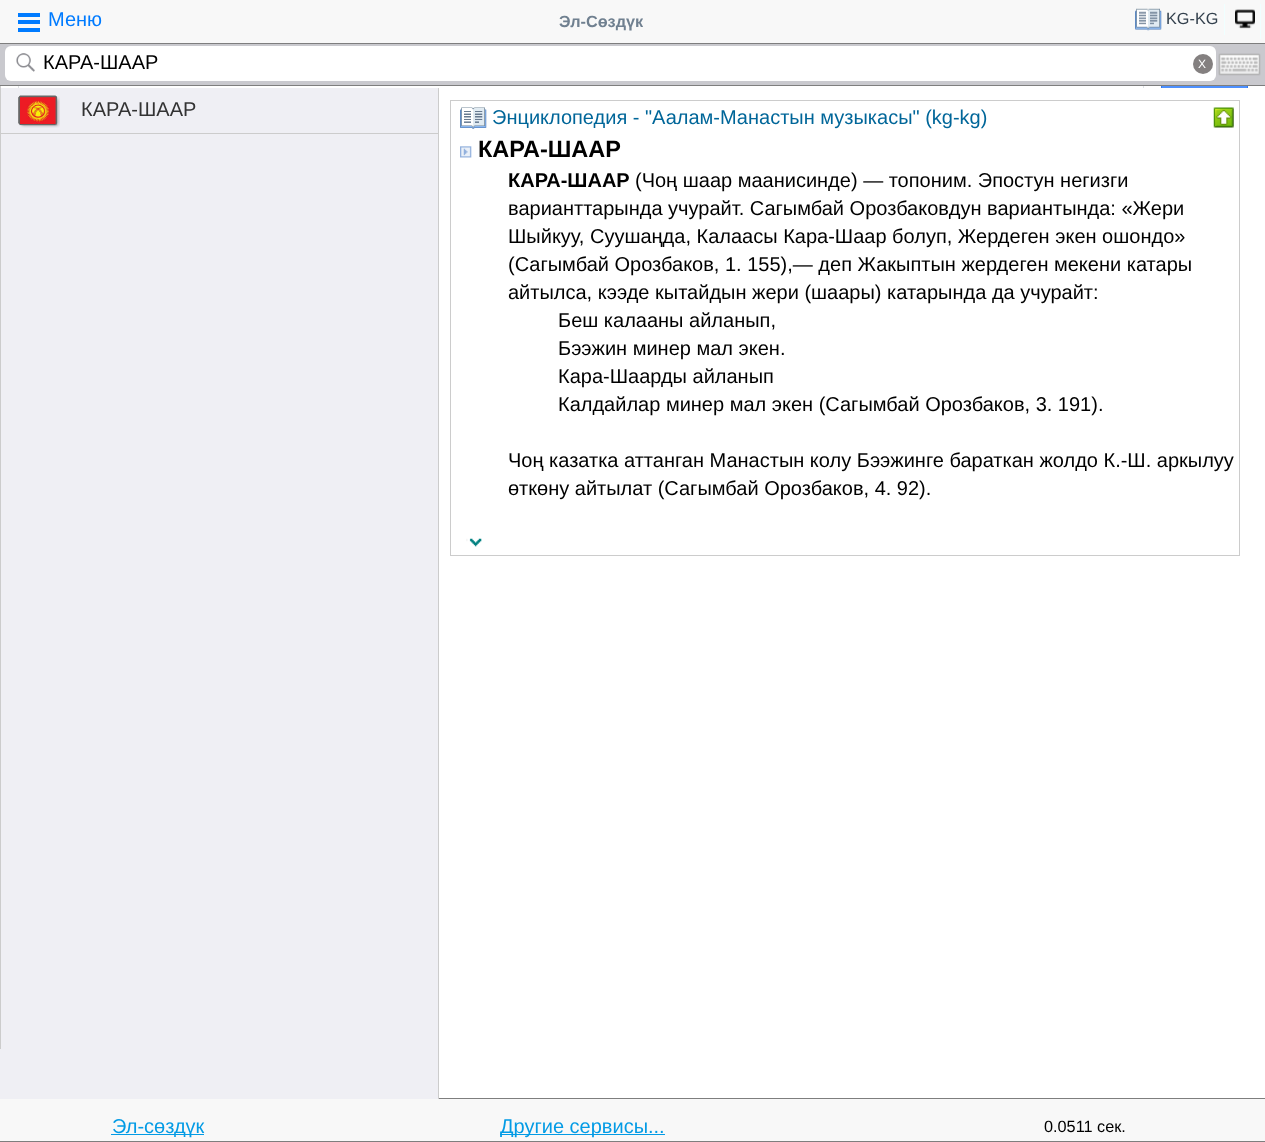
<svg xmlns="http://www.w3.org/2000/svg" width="1265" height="1142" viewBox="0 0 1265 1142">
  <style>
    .t1 { font: 20px Liberation Sans; fill: #007bff; }
    .t2 { font: bold 16.25px Liberation Sans; fill: #708090; }
    .t3 { font: 16.25px Liberation Sans; fill: #33404d; }
    .t4 { font: 20px Liberation Sans; fill: #000; }
    .t5 { font: 12px Liberation Sans; fill: #fff; }
    .t6 { font: 20px Liberation Sans; fill: #333; }
    .t7 { font: 20px Liberation Sans; fill: #069; }
    .t8 { font: bold 23.5px Liberation Sans; fill: #000; }
    .t9 { font: bold 20px Liberation Sans; fill: #000; }
    .t10 { font: 20px Liberation Sans; fill: #039be5; }
    .t11 { font: 16.25px Liberation Sans; fill: #000; }
  </style>
  <rect width="100%" height="100%" fill="#fff"/>
  <rect x="18.5" y="55.5" width="1125" height="37" fill="none" stroke="#dfe1e5"/>
  <rect x="0" y="88" width="438" height="1011" fill="#efeff4"/>
  <rect x="0" y="133" width="438" height="1" fill="#ccc"/>
  <rect x="0" y="86" width="1" height="963" fill="#ccc"/>
  <rect x="0" y="0" width="1265" height="43" fill="#f8f8f8"/>
  <rect x="0" y="43" width="1265" height="1" fill="#7e7e7e"/>
  <rect x="18" y="13" width="22" height="4" fill="#007bff"/>
  <rect x="18" y="20" width="22" height="4" fill="#007bff"/>
  <rect x="18" y="28" width="22" height="4" fill="#007bff"/>
  <text x="48" y="26" class="t1">Меню</text>
  <text x="559" y="27" class="t2">Эл-Сөздүк</text>
  <rect x="1224" y="4" width="1" height="31" fill="#f0ffff"/>
  <image x="1135" y="8" width="27" height="23" href="images/1.png"/>
  <text x="1166" y="24" class="t3">KG-KG</text>
  <rect x="1260" y="4" width="1" height="35" fill="#f0ffff"/>
  <image x="1235" y="9" width="20" height="20" href="images/2.png"/>
  <rect x="1162" y="86" width="85" height="2" fill="#4d90fe"/>
  <rect x="1161.5" y="58.5" width="86" height="32" fill="none" stroke="#3079ed"/>
  <rect x="0" y="44" width="1265" height="41" fill="#c9c9ce"/>
  <rect x="0" y="85" width="1265" height="1" fill="#7e7e7e"/>
  <rect x="5" y="46" width="1211" height="35" rx="6" fill="#fff"/>
  <image x="16" y="53" width="19" height="19" href="images/3.png"/>
  <text x="43" y="69" class="t4">КАРА-ШААР</text>
  <circle cx="1203" cy="64" r="10" fill="#848080"/>
  <text x="1198" y="68" class="t5">X</text>
  <image x="1218" y="53" width="43" height="23" href="images/4.png"/>
  <rect x="438" y="88" width="1" height="1011" fill="#ccc"/>
  <image x="18" y="95" width="42" height="33" href="images/5.png"/>
  <text x="81" y="116" class="t6">КАРА-ШААР</text>
  <rect x="439" y="88" width="809" height="5" fill="#fff"/>
  <rect x="450.5" y="100.5" width="789" height="455" fill="none" stroke="#ccc"/>
  <image x="460" y="107" width="27" height="22" href="images/6.png"/>
  <text x="492" y="124" class="t7">Энциклопедия - "Аалам-Манастын музыкасы" (kg-kg)</text>
  <image x="1213" y="107" width="21" height="21" href="images/7.png"/>
  <image x="460" y="146" width="12" height="12" href="images/8.png"/>
  <text x="478" y="157" class="t8">КАРА-ШААР</text>
  <text x="508" y="187" class="t9">КАРА-ШААР</text>
  <text x="635" y="187" class="t4">(Чоң шаар маанисинде) — топоним. Эпостун негизги</text>
  <text x="508" y="215" class="t4">варианттарында учурайт. Сагымбай Орозбаковдун вариантында: «Жери</text>
  <text x="508" y="243" class="t4">Шыйкуу, Суушаңда, Калаасы Кара-Шаар болуп, Жердеген экен ошондо»</text>
  <text x="508" y="271" class="t4">(Сагымбай Орозбаков, 1. 155),— деп Жакыптын жердеген мекени катары</text>
  <text x="508" y="299" class="t4">айтылса, кээде кытайдын жери (шаары) катарында да учурайт:</text>
  <text x="558" y="327" class="t4">Беш калааны айланып,</text>
  <text x="558" y="355" class="t4">Бээжин минер мал экен.</text>
  <text x="558" y="383" class="t4">Кара-Шаарды айланып</text>
  <text x="558" y="411" class="t4">Калдайлар минер мал экен (Сагымбай Орозбаков, 3. 191).</text>
  <text x="508" y="467" class="t4">Чоң казатка аттанган Манастын колу Бээжинге бараткан жолдо К.-Ш. аркылуу</text>
  <text x="508" y="495" class="t4">өткөну айтылат (Сагымбай Орозбаков, 4. 92).</text>
  <image x="466" y="538" width="16" height="9" href="images/9.png"/>
  <rect x="0" y="1099" width="1265" height="42" fill="#f8f8f8"/>
  <rect x="439" y="1098" width="826" height="1" fill="#7e7e7e"/>
  <rect x="0" y="1141" width="1265" height="1" fill="#7e7e7e"/>
  <rect x="111" y="1134" width="93" height="1" fill="#039be5"/>
  <text x="112" y="1133" class="t10">Эл-сөздүк</text>
  <rect x="500" y="1134" width="165" height="1" fill="#039be5"/>
  <text x="500" y="1133" class="t10">Другие сервисы...</text>
  <text x="1044" y="1132" class="t11">0.0511 сек.</text>
</svg>
